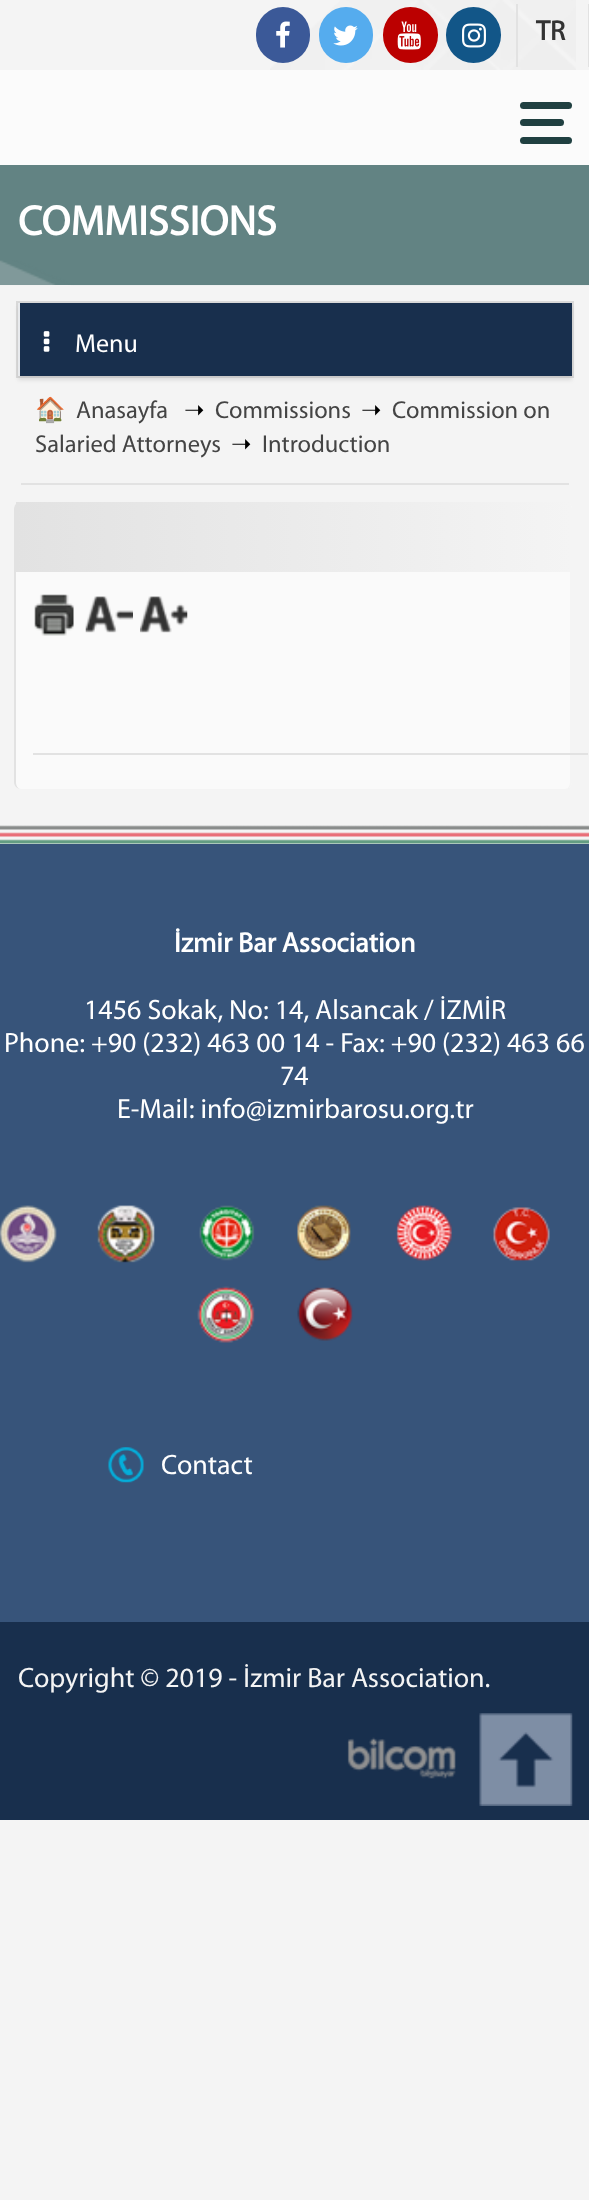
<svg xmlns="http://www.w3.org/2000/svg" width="589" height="2200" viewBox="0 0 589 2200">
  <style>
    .t1 { font: bold 28px Myriad; fill: #333; }
    .t2 { font: bold 42px Myriad; fill: #fff; }
    .t3 { font: 26px Myriad; fill: #fff; }
    .t4 { font: 24.5px Noto Color Emoji; fill: #000; }
    .t5 { font: 24.5px Myriad; fill: #444; }
    .t6 { font: 24.5px DejaVu Sans; fill: #000; }
    .t7 { font: bold 28px Myriad; fill: #fff; }
    .t8 { font: 28px Myriad; fill: #fff; }
    .t9 { font: 28px Myriad; fill: #f4f4f4; }
  </style>
  <defs>
    <linearGradient id="g1" gradientUnits="userSpaceOnUse" x1="16" y1="537" x2="571" y2="537"><stop offset="0" stop-color="#e2e2e2"/><stop offset="1" stop-color="#f4f4f4"/></linearGradient>
  </defs>
  <rect width="100%" height="100%" fill="#f4f4f4"/>
  <image x="270" y="0" width="306" height="70" href="images/1.png"/>
  <rect x="516" y="4" width="2" height="63" fill="#e2e2e2"/>
  <rect x="256" y="7" width="54" height="56" rx="27" fill="#3b5998"/>
  <image x="276" y="21" width="14" height="27" href="images/2.png"/>
  <rect x="319" y="7" width="54" height="56" rx="27" fill="#55acee"/>
  <image x="333" y="25" width="25" height="21" href="images/3.png"/>
  <rect x="383" y="7" width="55" height="56" rx="27.5" fill="#b00"/>
  <image x="397" y="21" width="24" height="29" href="images/4.png"/>
  <rect x="446" y="7" width="55" height="56" rx="27.5" fill="#125688"/>
  <image x="462" y="23" width="24" height="25" href="images/5.png"/>
  <rect x="588" y="4" width="1" height="63" fill="#e2e2e2"/>
  <text x="536" y="40" class="t1">TR</text>
  <rect x="0" y="70" width="589" height="95" fill="#fbfbfb"/>
  <rect x="520" y="102" width="52" height="7" rx="3.5" fill="#204041"/>
  <rect x="520" y="119" width="44" height="7" rx="3.5" fill="#204041"/>
  <rect x="520" y="137" width="52" height="7" rx="3.5" fill="#204041"/>
  <rect x="0" y="165" width="589" height="120" fill="#628383"/>
  <image x="0" y="260" width="589" height="26" href="images/6.png"/>
  <text x="18" y="235" class="t2">COMMISSIONS</text>
  <rect x="18" y="306" width="554" height="74" fill="#0000001a" filter="blur(2px)"/>
  <rect x="17" y="302" width="556" height="75" fill="none" stroke="#9b9b9b4d" stroke-width="2"/>
  <rect x="20" y="303" width="552" height="73" fill="#182f4d"/>
  <rect x="18" y="303" width="2" height="73" fill="#e8eaed"/>
  <image x="43" y="331" width="7" height="21" href="images/7.png"/>
  <text x="75" y="352" class="t3">Menu</text>
  <rect x="21" y="483" width="548" height="2" fill="#e2e2e2"/>
  <text x="35" y="418" class="t4">🏠</text>
  <text x="76" y="418" class="t5">Anasayfa</text>
  <text x="184" y="418" class="t6">➝</text>
  <text x="215" y="418" class="t5">Commissions</text>
  <text x="361" y="418" class="t6">➝</text>
  <text x="392" y="418" class="t5">Commission on</text>
  <text x="35" y="452" class="t5">Salaried Attorneys</text>
  <text x="231" y="452" class="t6">➝</text>
  <text x="262" y="452" class="t5">Introduction</text>
  <rect x="14" y="502" width="558" height="287" rx="7" fill="#fafafa"/>
  <path d="M567 502H566C569 503 570 506 570 509V782C570 786 568 789 565 789C569 789 572 786 572 782V509C572 506 570 503 567 502Z" fill="#f4f4f4"/>
  <path d="M14 509V782C14 786 17 789 21 789C18 789 16 786 16 782V509C16 506 17 503 20 502C16 502 14 506 14 509Z" fill="#e2e2e2"/>
  <rect x="16" y="502" width="554" height="70" fill="url(#g1)"/>
  <image x="34" y="594" width="40" height="42" href="images/8.png"/>
  <image x="85" y="596" width="48" height="37" href="images/9.png"/>
  <image x="140" y="596" width="48" height="37" href="images/10.png"/>
  <rect x="33" y="753" width="555" height="2" fill="#e2e2e2"/>
  <image x="0" y="825" width="589" height="19" href="images/11.png"/>
  <rect x="0" y="844" width="589" height="778" fill="#37547a"/>
  <text x="174" y="952" class="t7">İzmir Bar Association</text>
  <text x="84" y="1019" class="t8">1456 Sokak, No: 14, Alsancak / İZMİR</text>
  <text x="4" y="1052" class="t8">Phone: +90 (232) 463 00 14 - Fax: +90 (232) 463 66</text>
  <text x="280" y="1085" class="t8">74</text>
  <text x="117" y="1118" class="t8">E-Mail: info@izmirbarosu.org.tr</text>
  <image x="0" y="1205" width="57" height="58" href="images/12.png"/>
  <image x="97" y="1205" width="58" height="58" href="images/13.png"/>
  <image x="199" y="1205" width="56" height="56" href="images/14.png"/>
  <image x="297" y="1205" width="54" height="56" href="images/15.png"/>
  <image x="396" y="1205" width="56" height="56" href="images/16.png"/>
  <image x="493" y="1207" width="57" height="54" href="images/17.png"/>
  <image x="197" y="1286" width="58" height="57" href="images/18.png"/>
  <image x="297" y="1287" width="56" height="54" href="images/19.png"/>
  <image x="108" y="1447" width="36" height="36" href="images/20.png"/>
  <text x="161" y="1474" class="t8">Contact</text>
  <rect x="0" y="1622" width="589" height="198" fill="#182f4d"/>
  <text x="18" y="1687" class="t9">Copyright © 2019 - İzmir Bar Association.</text>
  <image x="347" y="1737" width="109" height="42" href="images/21.png"/>
  <image x="479" y="1713" width="94" height="93" href="images/22.png"/>
</svg>
